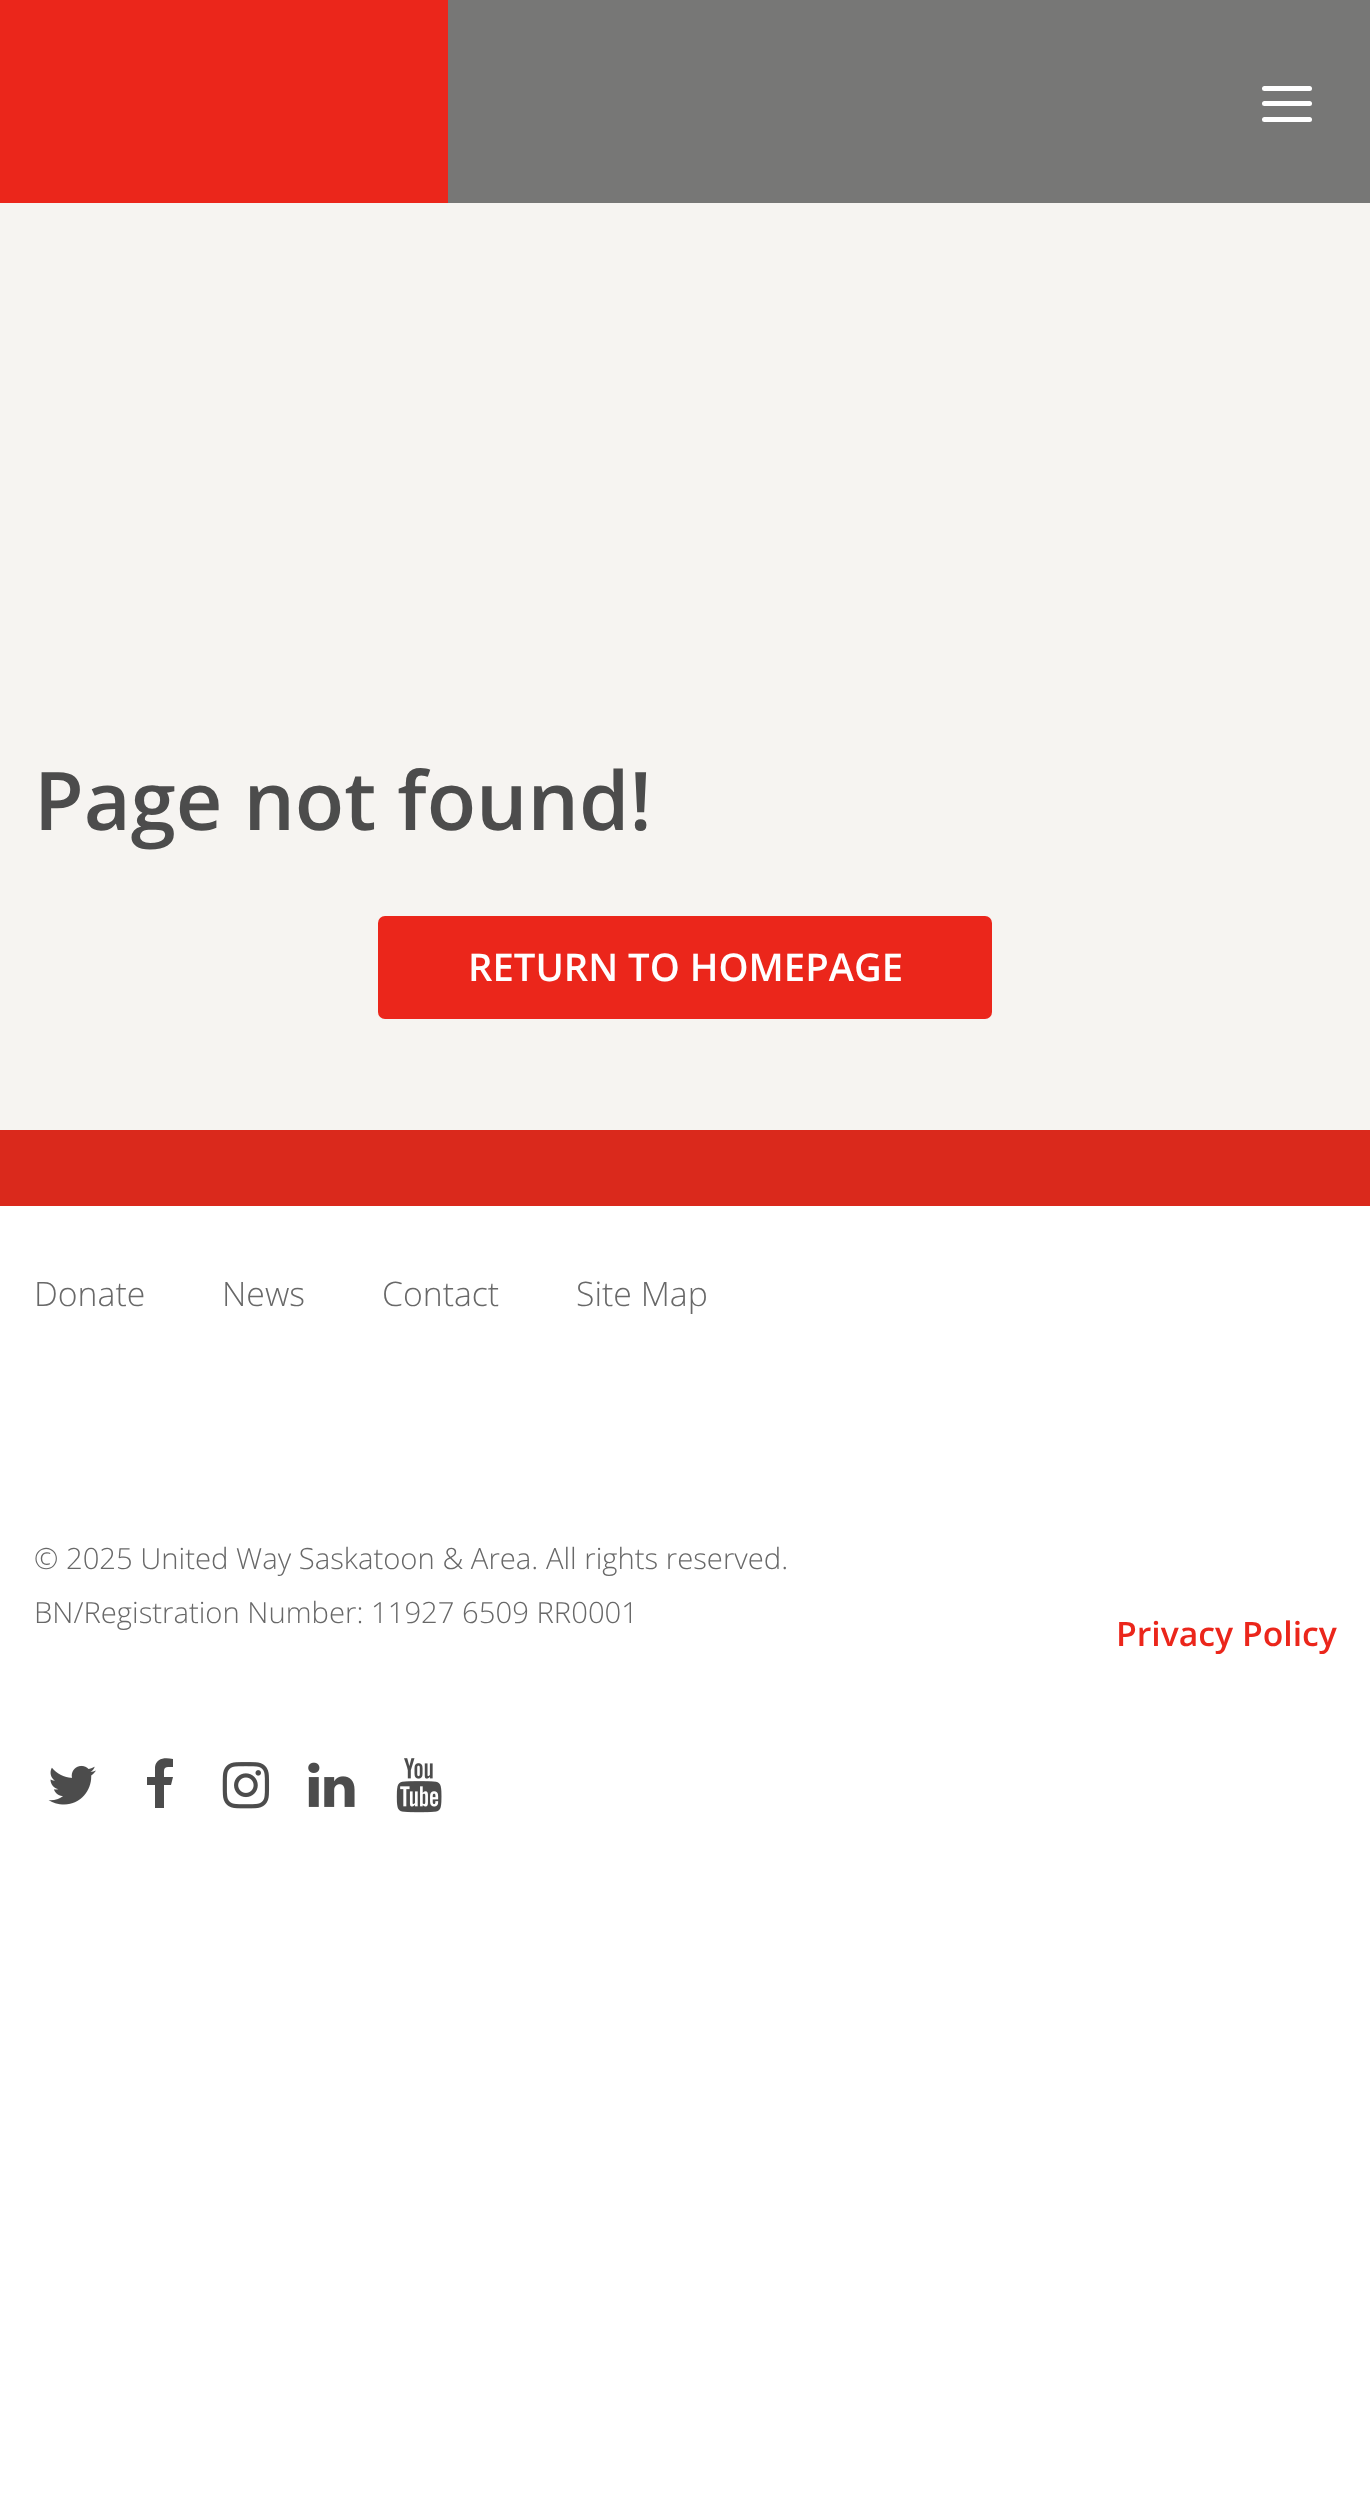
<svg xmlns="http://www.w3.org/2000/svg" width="1370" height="2519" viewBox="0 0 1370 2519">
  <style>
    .t1 { font: 600 81px Open Sans; fill: #4c4c4c; }
    .t2 { font: 600 38.25px Open Sans; fill: #fff; }
    .t3 { font: 300 33.75px Open Sans; fill: #686868; }
    .t4 { font: 300 29.25px Open Sans; fill: #686868; }
    .t5 { font: 600 33.75px Open Sans; fill: #eb261b; }
  </style>
  <rect width="100%" height="100%" fill="#fff"/>
  <rect x="0" y="0" width="448" height="203" fill="#eb261b"/>
  <rect x="448" y="0" width="922" height="203" fill="#777776"/>
  <rect x="1262" y="86" width="50" height="5" rx="2.5" fill="#fff"/>
  <rect x="1262" y="101" width="50" height="5" rx="2.5" fill="#fff"/>
  <rect x="1262" y="117" width="50" height="5" rx="2.5" fill="#fff"/>
  <rect x="0" y="203" width="1370" height="927" fill="#f6f4f1"/>
  <text x="34" y="830" class="t1">Page not found!</text>
  <rect x="378" y="916" width="614" height="103" rx="7" fill="#eb261b"/>
  <text x="468" y="981" class="t2">RETURN TO HOMEPAGE</text>
  <rect x="0" y="1130" width="1370" height="76" fill="#da291c"/>
  <text x="34" y="1306" class="t3">Donate</text>
  <text x="222" y="1306" class="t3">News</text>
  <text x="382" y="1306" class="t3">Contact</text>
  <text x="576" y="1306" class="t3">Site Map</text>
  <text x="34" y="1569" class="t4">© 2025 United Way Saskatoon &amp; Area. All rights reserved.</text>
  <text x="34" y="1623" class="t4">BN/Registration Number: 11927 6509 RR0001</text>
  <text x="1116" y="1646" class="t5">Privacy Policy</text>
  <image x="48" y="1765" width="48" height="40" href="images/1.png"/>
  <path d="M173 1759C165 1757 156 1758 155 1767V1777H147V1785H155V1808H164V1785H171L173 1777H164C164 1767 163 1767 173 1767Z" fill="#4c4c4c"/>
  <image x="222" y="1762" width="48" height="47" href="images/2.png"/>
  <image x="308" y="1762" width="47" height="45" href="images/3.png"/>
  <image x="396" y="1758" width="46" height="55" href="images/4.png"/>
</svg>
